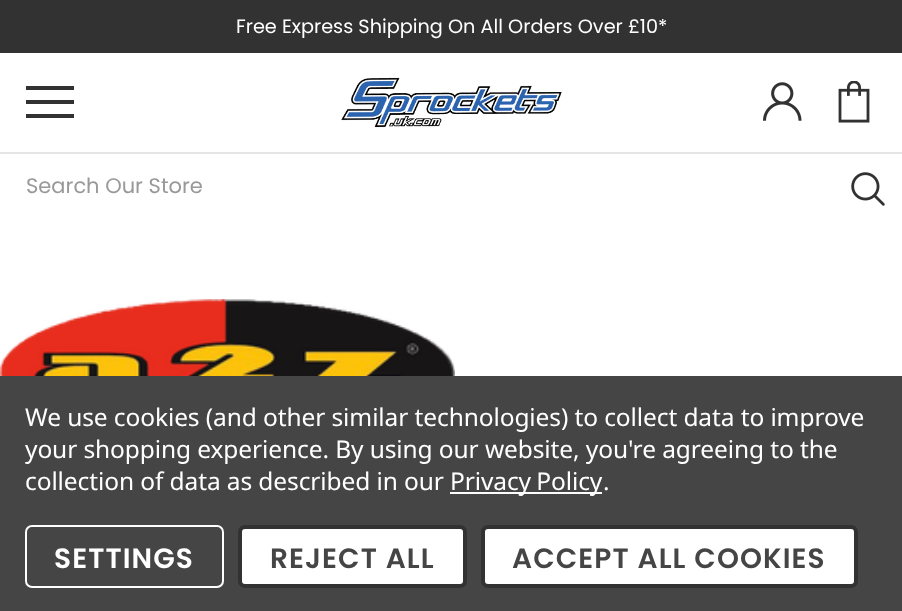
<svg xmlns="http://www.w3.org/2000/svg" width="902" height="611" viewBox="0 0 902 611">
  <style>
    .t1 { font: 19.25px Poppins; fill: #fff; }
    .t2 { font: 21px Poppins; fill: #999; }
    .t3 { font: 24.5px Noto Sans; letter-spacing: -0.1px; fill: #fff; }
    .t4 { font: 600 28px Poppins; letter-spacing: 1.1px; fill: #fff; }
    .t5 { font: 600 28px Poppins; letter-spacing: 1.1px; fill: #454545; }
  </style>
  <rect width="100%" height="100%" fill="#fff"/>
  <rect x="0" y="152" width="902" height="2" fill="#e5e5e5"/>
  <rect x="0" y="0" width="902" height="53" fill="#323232"/>
  <text x="236" y="33" class="t1">Free Express Shipping On All Orders Over £10*</text>
  <rect x="26" y="100" width="48" height="4" fill="#323232"/>
  <rect x="26" y="86" width="48" height="4" fill="#323232"/>
  <rect x="26" y="114" width="48" height="4" fill="#323232"/>
  <image x="341" y="77" width="221" height="51" href="images/1.png"/>
  <image x="763" y="82" width="39" height="39" href="images/2.png"/>
  <image x="838" y="81" width="32" height="42" href="images/3.png"/>
  <text x="26" y="193" class="t2">Search Our Store</text>
  <image x="851" y="172" width="34" height="34" href="images/4.png"/>
  <image x="0" y="299" width="455" height="77" href="images/5.png"/>
  <rect x="0" y="376" width="902" height="235" fill="#454545"/>
  <text x="25" y="426" class="t3">We use cookies (and other similar technologies) to collect data to improve</text>
  <text x="25" y="458" class="t3">your shopping experience. By using our website, you're agreeing to the</text>
  <text x="25" y="490" class="t3">collection of data as described in our</text>
  <rect x="450" y="492" width="152" height="2" fill="#fff"/>
  <text x="450" y="490" word-spacing="-1" class="t3">Privacy Policy</text>
  <text x="603" y="490" class="t3">.</text>
  <rect x="26" y="526" width="197" height="61" rx="6" fill="none" stroke="#fff" stroke-width="2"/>
  <text x="54" y="568" class="t4">SETTINGS</text>
  <rect x="240" y="527" width="225" height="59" rx="5" fill="#fff" stroke="#323232" stroke-width="4"/>
  <text x="270" y="568" class="t5">REJECT ALL</text>
  <rect x="483" y="527" width="373" height="59" rx="5" fill="#fff" stroke="#323232" stroke-width="4"/>
  <text x="512" y="568" class="t5">ACCEPT ALL COOKIES</text>
</svg>
